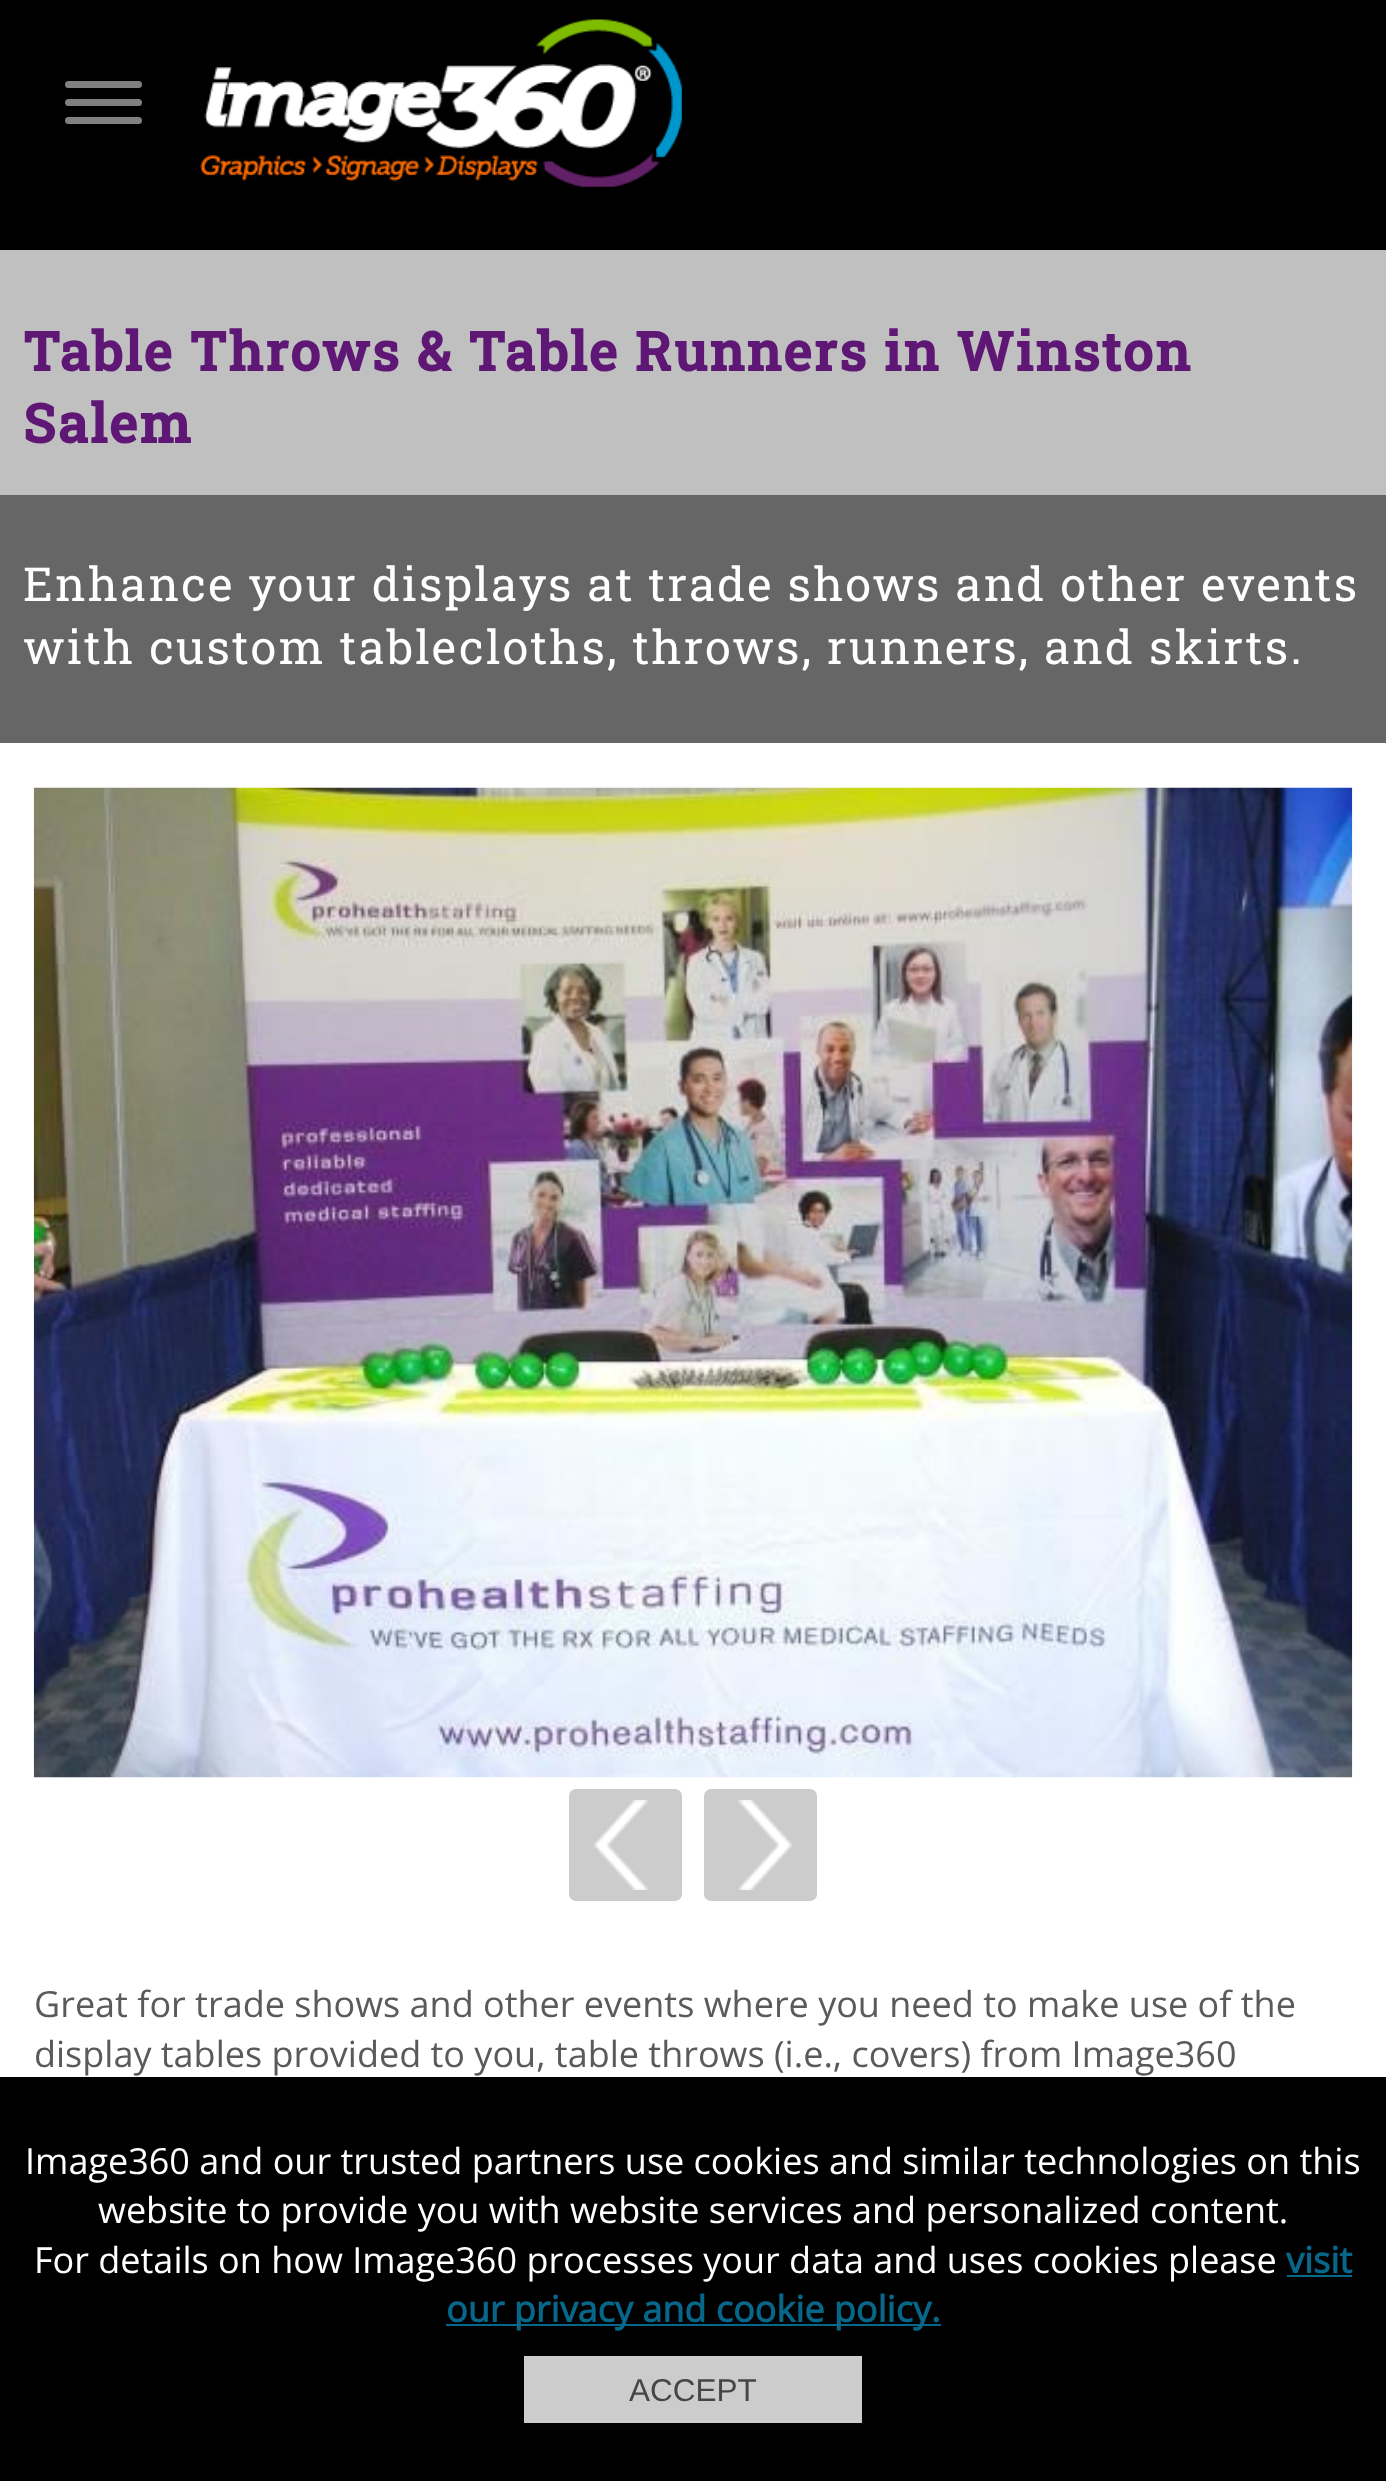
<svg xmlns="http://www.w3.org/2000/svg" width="1386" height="2481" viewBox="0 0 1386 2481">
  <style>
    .t1 { font: bold 54px Roboto Slab; letter-spacing: 2.25px; fill: #5e1774; }
    .t2 { font: 46.8px Roboto Slab; letter-spacing: 2.25px; fill: #fff; }
    .t3 { font: 36px Open Sans; fill: #5a5a5a; }
    .t4 { font: 36px Open Sans; fill: #fff; }
    .t5 { font: bold 36px Open Sans; fill: #06678a; }
    .t6 { font: 31.5px Liberation Sans; fill: #464646; }
  </style>
  <rect width="100%" height="100%" fill="#fff"/>
  <rect x="0" y="0" width="1386" height="250" fill="#000"/>
  <rect x="66" y="82" width="75" height="5" rx="2.5" fill="#808080" stroke="#808080" stroke-width="2"/>
  <rect x="66" y="100" width="75" height="5" rx="2.5" fill="#808080" stroke="#808080" stroke-width="2"/>
  <rect x="66" y="118" width="75" height="5" rx="2.5" fill="#808080" stroke="#808080" stroke-width="2"/>
  <image x="200" y="19" width="482" height="168" href="images/1.png"/>
  <rect x="0" y="250" width="1386" height="245" fill="#c0c0c0"/>
  <text x="23" y="371" class="t1">Table Throws &amp; Table Runners in Winston</text>
  <text x="23" y="443" class="t1">Salem</text>
  <rect x="0" y="495" width="1386" height="248" fill="#666"/>
  <text x="23" y="601" class="t2">Enhance your displays at trade shows and other events</text>
  <text x="23" y="664" class="t2">with custom tablecloths, throws, runners, and skirts.</text>
  <image x="33" y="787" width="1320" height="991" href="images/2.png"/>
  <rect x="569" y="1789" width="113" height="112" rx="7" fill="#ccc"/>
  <image x="593" y="1800" width="55" height="90" href="images/3.png"/>
  <rect x="704" y="1789" width="113" height="112" rx="7" fill="#ccc"/>
  <image x="738" y="1800" width="55" height="90" href="images/4.png"/>
  <text x="34" y="2017" class="t3">Great for trade shows and other events where you need to make use of the</text>
  <text x="34" y="2067" class="t3">display tables provided to you, table throws (i.e., covers) from Image360</text>
  <rect x="0" y="2077" width="1386" height="404" fill="#000"/>
  <text x="25" y="2174" class="t4">Image360 and our trusted partners use cookies and similar technologies on this</text>
  <text x="98" y="2223" class="t4">website to provide you with website services and personalized content.</text>
  <text x="34" y="2273" class="t4">For details on how Image360 processes your data and uses cookies please</text>
  <text x="1286" y="2273" class="t5">visit</text>
  <rect x="1287" y="2275" width="65" height="2" fill="#06678a"/>
  <rect x="446" y="2324" width="495" height="2" fill="#06678a"/>
  <text x="446" y="2322" class="t5">our privacy and cookie policy.</text>
  <rect x="524" y="2356" width="338" height="67" fill="#ccc"/>
  <text x="629" y="2401" class="t6">ACCEPT</text>
</svg>
